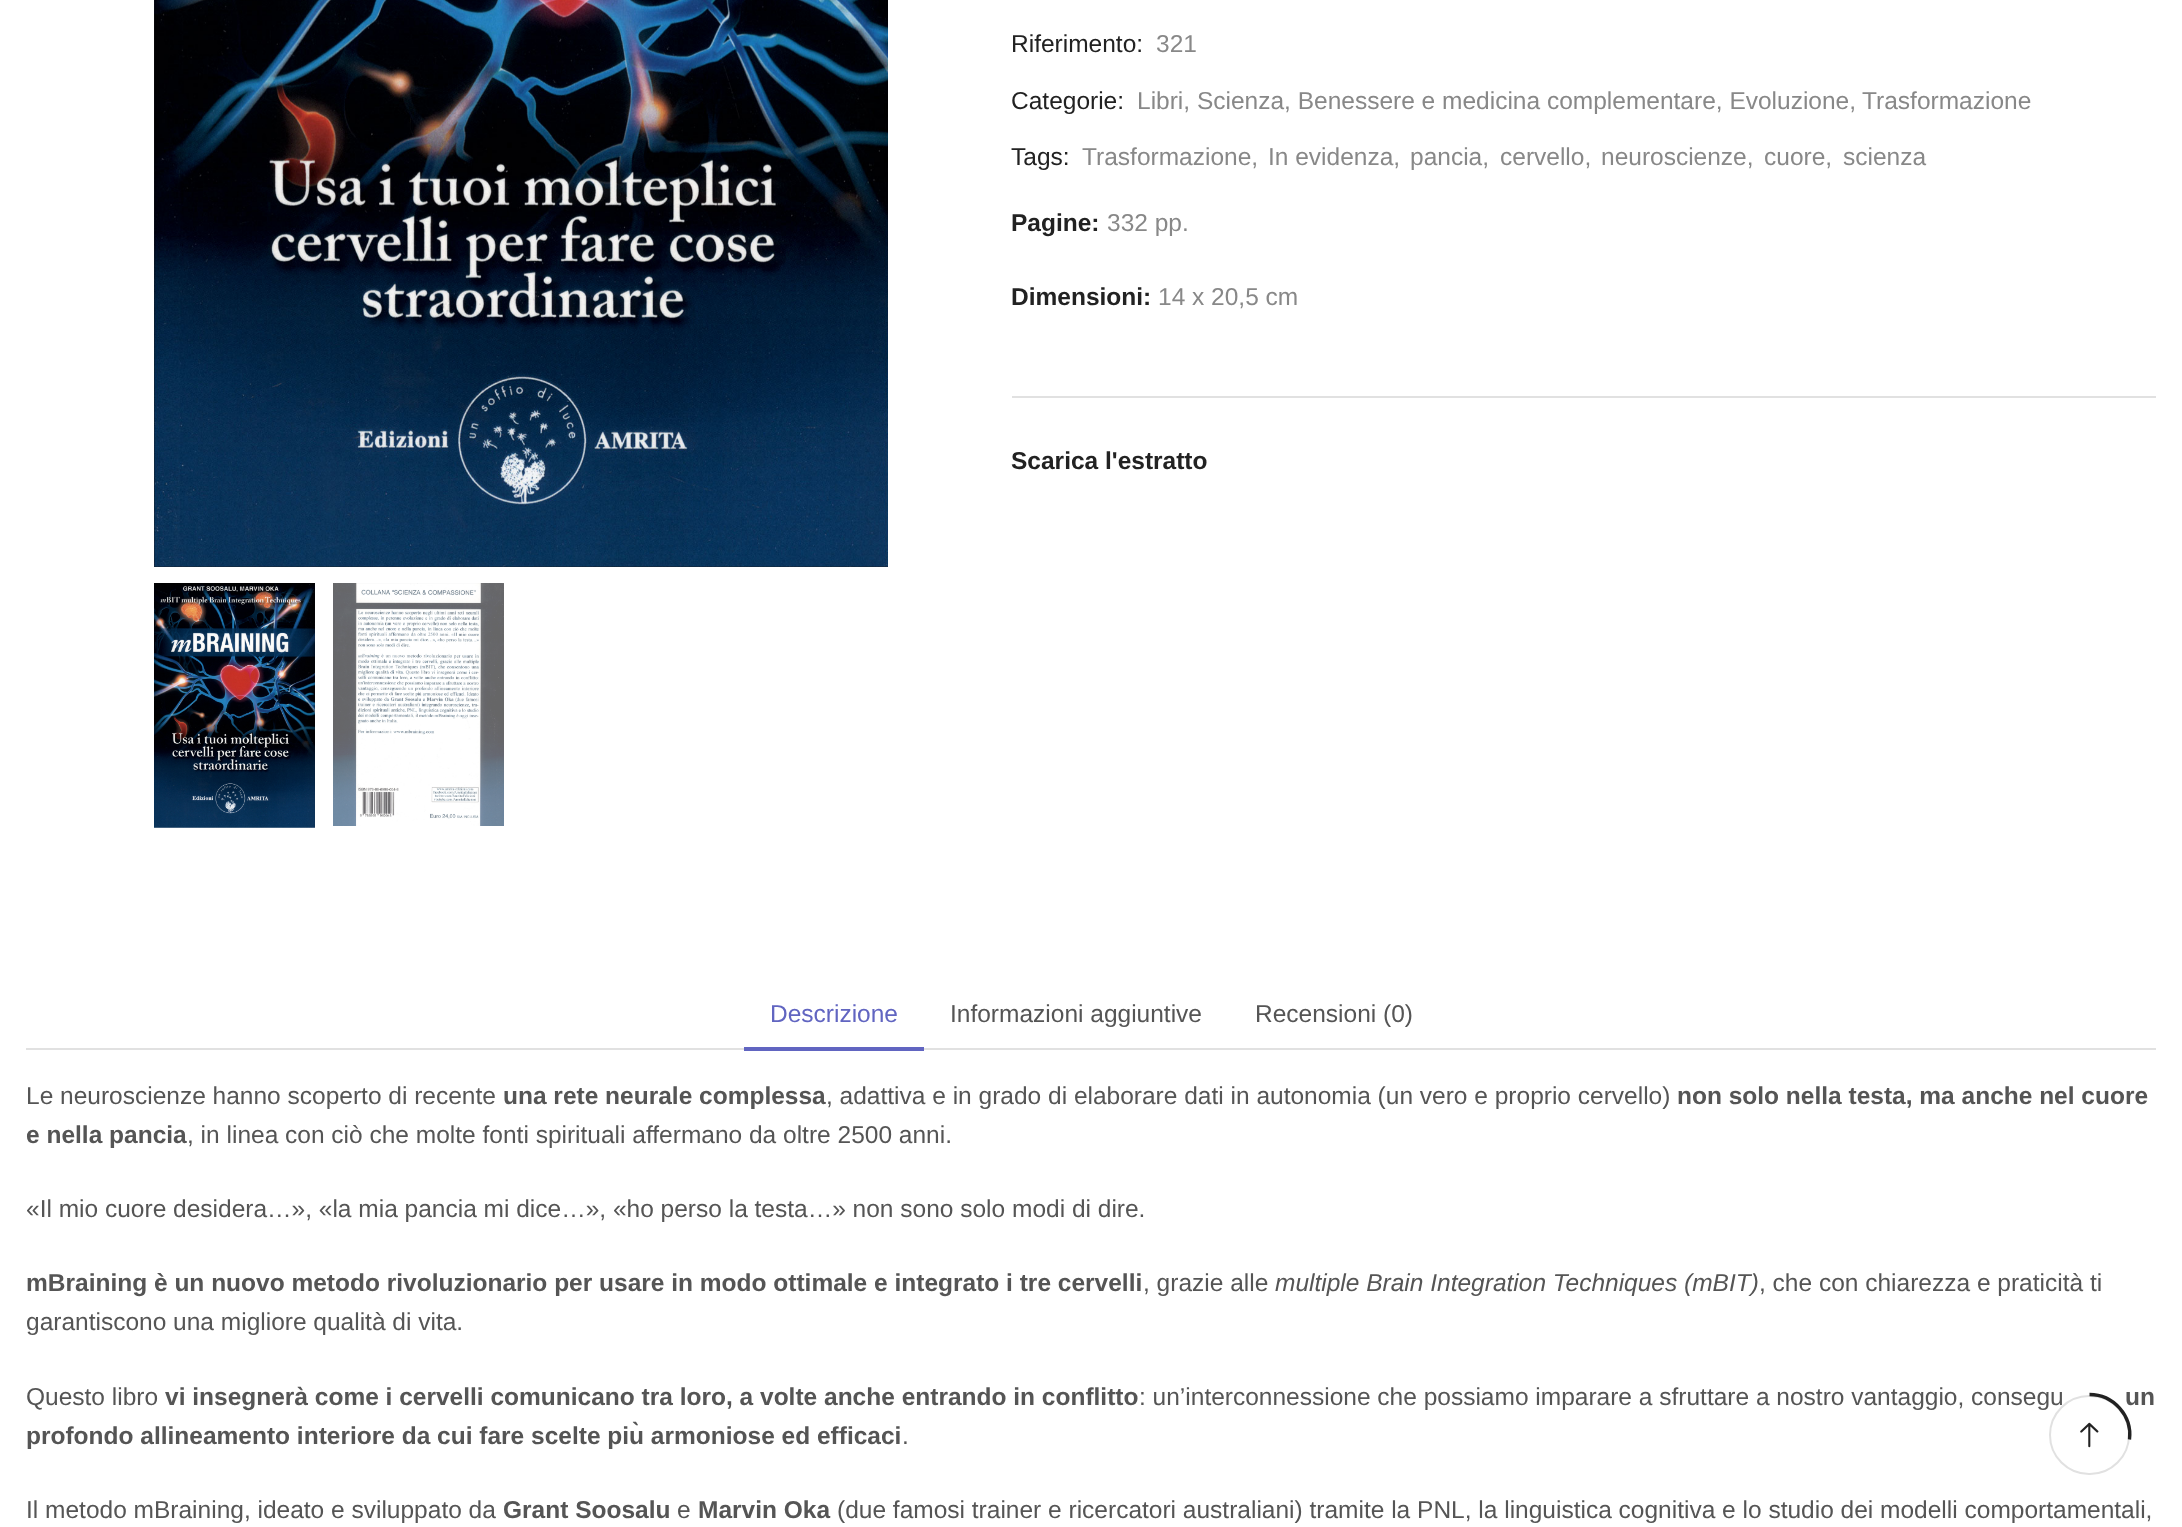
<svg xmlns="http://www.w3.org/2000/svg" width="2182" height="1527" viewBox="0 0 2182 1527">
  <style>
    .t1 { font: 24.5px Liberation Sans; fill: #222; }
    .t2 { font: 24.5px Liberation Sans; fill: #888; }
    .t3 { font: bold 24.5px Liberation Sans; fill: #222; }
    .t4 { font: 24.5px Liberation Sans; fill: #6165c1; }
    .t5 { font: 24.5px Liberation Sans; fill: #555; }
    .t6 { font: bold 24.5px Liberation Sans; fill: #555; }
    .t7 { font: italic 24.5px Liberation Sans; fill: #555; }
  </style>
  <rect width="100%" height="100%" fill="#fff"/>
  <image x="154" y="0" width="734" height="567" href="images/1.png"/>
  <image x="154" y="583" width="161" height="245" href="images/2.png"/>
  <image x="333" y="583" width="171" height="243" href="images/3.png"/>
  <text x="1011" y="52" class="t1">Riferimento:</text>
  <text x="1156" y="52" class="t2">321</text>
  <text x="1011" y="109" class="t1">Categorie:</text>
  <text x="1137" y="109" class="t2">Libri, Scienza, Benessere e medicina complementare, Evoluzione,</text>
  <text x="1862" y="109" class="t2">Trasformazione</text>
  <text x="1011" y="165" class="t1">Tags:</text>
  <text x="1082" y="165" class="t2">Trasformazione,</text>
  <text x="1268" y="165" class="t2">In evidenza,</text>
  <text x="1410" y="165" class="t2">pancia,</text>
  <text x="1500" y="165" class="t2">cervello,</text>
  <text x="1601" y="165" class="t2">neuroscienze,</text>
  <text x="1764" y="165" class="t2">cuore,</text>
  <text x="1843" y="165" class="t2">scienza</text>
  <text x="1011" y="231" class="t3">Pagine:</text>
  <text x="1107" y="231" class="t2">332 pp.</text>
  <text x="1011" y="305" class="t3">Dimensioni:</text>
  <text x="1158" y="305" class="t2">14 x 20,5 cm</text>
  <rect x="1012" y="396" width="1144" height="2" fill="#e1e1e1"/>
  <text x="1011" y="469" class="t3">Scarica l'estratto</text>
  <text x="770" y="1022" class="t4">Descrizione</text>
  <rect x="26" y="1048" width="2130" height="2" fill="#e1e1e1"/>
  <rect x="744" y="1047" width="180" height="4" fill="#6165c1"/>
  <text x="950" y="1022" class="t5">Informazioni aggiuntive</text>
  <text x="1255" y="1022" class="t5">Recensioni (0)</text>
  <text x="26" y="1104" class="t5">Le neuroscienze hanno scoperto di recente</text>
  <text x="503" y="1104" class="t6">una rete neurale complessa</text>
  <text x="826" y="1104" class="t5">, adattiva e in grado di elaborare dati in autonomia (un vero e proprio cervello)</text>
  <text x="1677" y="1104" class="t6">non solo nella testa, ma anche nel cuore</text>
  <text x="26" y="1143" class="t6">e nella pancia</text>
  <text x="187" y="1143" class="t5">, in linea con ciò che molte fonti spirituali affermano da oltre 2500 anni.</text>
  <text x="26" y="1217" class="t5">«Il mio cuore desidera…», «la mia pancia mi dice…», «ho perso la testa…» non sono solo modi di dire.</text>
  <text x="26" y="1291" class="t6">mBraining è un nuovo metodo rivoluzionario per usare in modo ottimale e integrato i tre cervelli</text>
  <text x="1143" y="1291" class="t5">, grazie alle</text>
  <text x="1275" y="1291" class="t7">multiple Brain Integration Techniques (mBIT)</text>
  <text x="1759" y="1291" class="t5">, che con chiarezza e praticità ti</text>
  <text x="26" y="1330" class="t5">garantiscono una migliore qualità di vita.</text>
  <text x="26" y="1405" class="t5">Questo libro</text>
  <text x="165" y="1405" class="t6">vi insegnerà come i cervelli comunicano tra loro, a volte anche entrando in conflitto</text>
  <text x="1139" y="1405" class="t5">: un’interconnessione che possiamo imparare a sfruttare a nostro vantaggio, consegu</text>
  <text x="2125" y="1405" class="t6">un</text>
  <text x="26" y="1444" class="t6">profondo allineamento interiore da cui fare scelte più armoniose ed efficaci</text>
  <text x="902" y="1444" class="t5">.</text>
  <text x="26" y="1518" class="t5">Il metodo mBraining, ideato e sviluppato da</text>
  <text x="503" y="1518" class="t6">Grant Soosalu</text>
  <text x="677" y="1518" class="t5">e</text>
  <text x="698" y="1518" class="t6">Marvin Oka</text>
  <text x="837" y="1518" class="t5">(due famosi trainer e ricercatori australiani) tramite la PNL, la linguistica cognitiva e lo studio dei modelli comportamentali,</text>
  <rect x="2050" y="1396" width="79" height="78" rx="39" fill="none" stroke="#e1e1e1" stroke-width="2"/>
  <path d="M2089.5 1394.5C2113.5 1394.5 2132.5 1416 2129.5 1439.5" fill="none" stroke="#222" stroke-width="3.3"/>
  <image x="2080" y="1422" width="19" height="26" href="images/4.png"/>
</svg>
